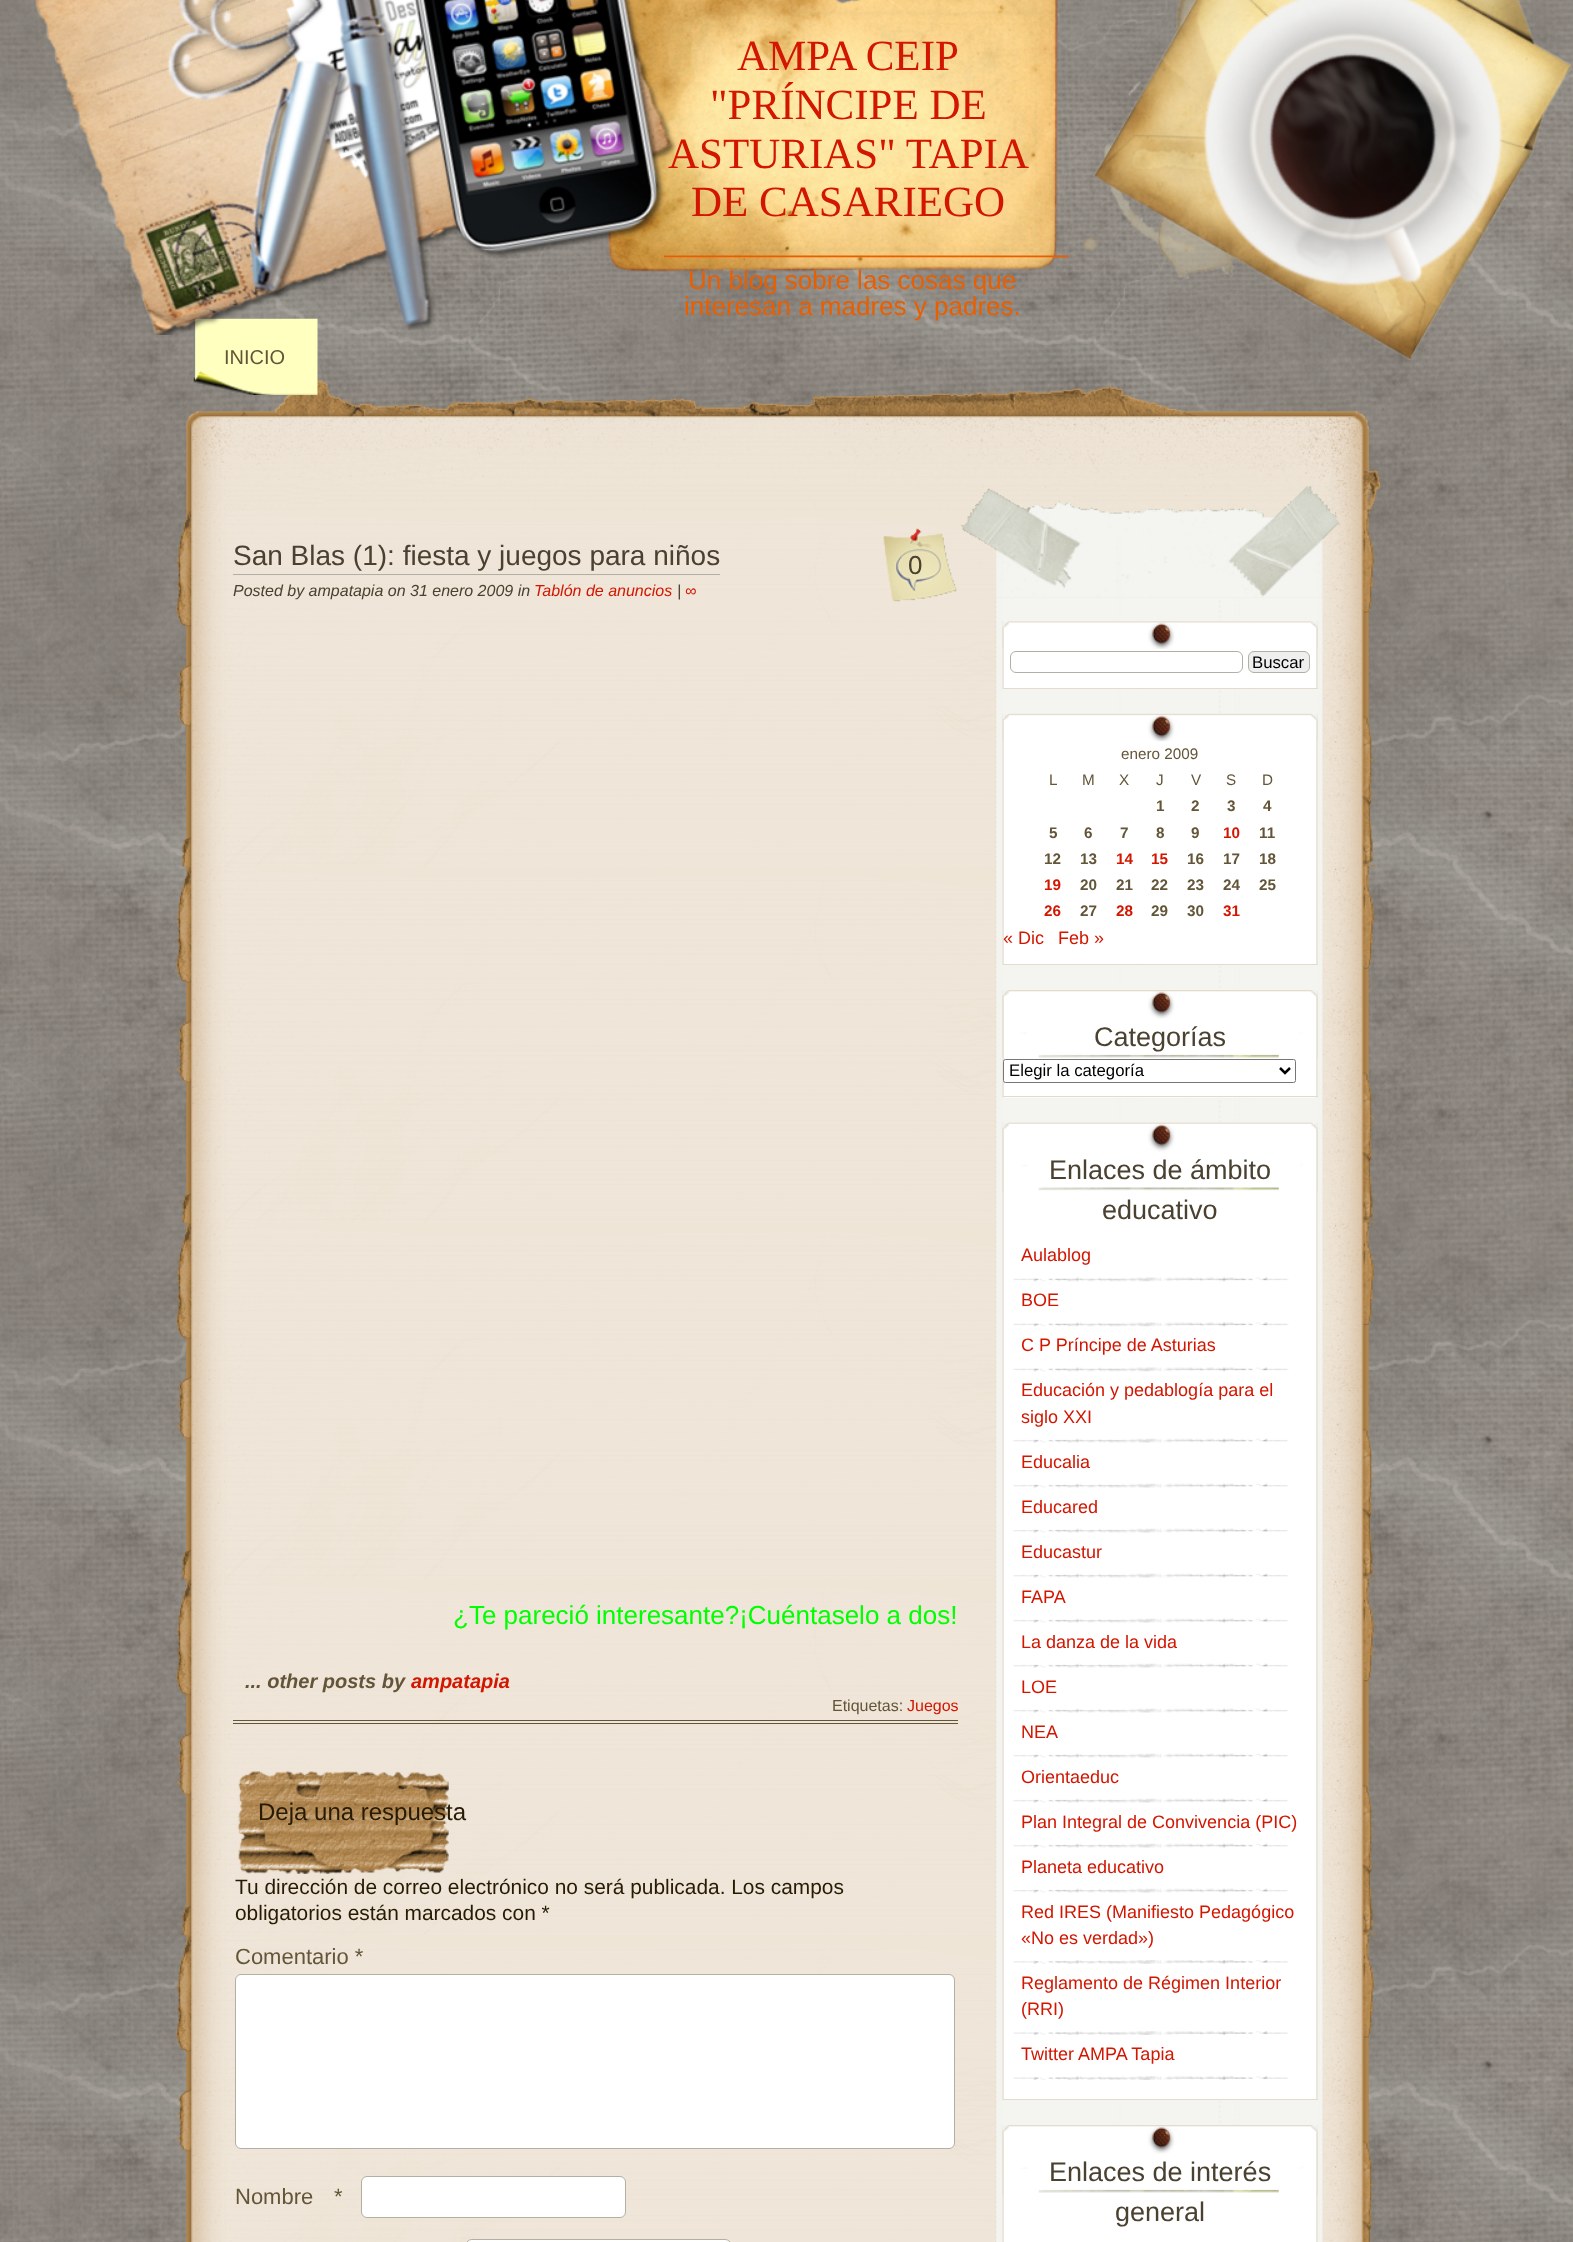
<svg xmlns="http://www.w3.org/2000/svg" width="1573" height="2242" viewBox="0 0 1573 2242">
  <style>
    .t1 { font: 43px Liberation Serif; fill: #d21600; }
    .t2 { font: 26px Liberation Sans; fill: #e95f00; }
    .t3 { font: 20px Liberation Sans; fill: #635537; }
    .t4 { font: 28px Liberation Sans; fill: #4a4131; }
    .t5 { font: 26px Liberation Sans; fill: #4a4131; }
    .t6 { font: italic 16px Liberation Sans; fill: #4a4131; }
    .t7 { font: italic 16px Liberation Sans; fill: #d21600; }
    .t8 { font: 26px Liberation Sans; fill: #0f0; }
    .t9 { font: italic bold 20px Liberation Sans; fill: #635537; }
    .t10 { font: italic bold 20px Liberation Sans; fill: #d21600; }
    .t11 { font: 16px Liberation Sans; fill: #635537; }
    .t12 { font: 16px Liberation Sans; fill: #d21600; }
    .t13 { font: 24px Liberation Sans; fill: #271b03; }
    .t14 { font: 20.9px Liberation Sans; fill: #271b03; }
    .t15 { font: 22px Liberation Sans; fill: #635537; }
    .t16 { font: 16.75px Liberation Sans; fill: #000; }
    .t17 { font: 15.25px Liberation Sans; fill: #635537; }
    .t18 { font: bold 15.25px Liberation Sans; fill: #635537; }
    .t19 { font: bold 15.25px Liberation Sans; fill: #d21600; }
    .t20 { font: 18px Liberation Sans; fill: #d21600; }
    .t21 { font: 27px Liberation Sans; fill: #4a4131; }
  </style>
  <rect width="100%" height="100%" fill="#fff"/>
  <image x="0" y="0" width="1573" height="2242" href="images/1.png"/>
  <image x="608" y="0" width="451" height="272" href="images/3.png"/>
  <text x="668" y="168" class="t1">ASTURIAS" TAPIA</text>
  <text x="664" y="263" class="t2">———————————————–</text>
  <image x="186" y="375" width="1212" height="135" href="images/6.png"/>
  <image x="193" y="318" width="125" height="77" href="images/5.png"/>
  <image x="34" y="0" width="643" height="335" href="images/2.png"/>
  <text x="737" y="70" class="t1">AMPA CEIP</text>
  <text x="710" y="119" class="t1">"PRÍNCIPE DE</text>
  <text x="691" y="216" class="t1">DE CASARIEGO</text>
  <text x="688" y="289" class="t2">Un blog sobre las cosas que</text>
  <text x="684" y="315" class="t2">interesan a madres y padres.</text>
  <image x="1083" y="0" width="490" height="360" href="images/4.png"/>
  <text x="224" y="364" class="t3">INICIO</text>
  <image x="176" y="510" width="1200" height="1732" href="images/7.png"/>
  <rect x="233" y="1720" width="725" height="1" fill="#635537"/>
  <rect x="233" y="1723" width="725" height="1" fill="#635537"/>
  <text x="233" y="565" class="t4">San Blas (1): fiesta y juegos para niños</text>
  <rect x="233" y="574" width="487" height="1" fill="#b2b0a4"/>
  <image x="883" y="528" width="74" height="74" href="images/8.png"/>
  <text x="908" y="574" class="t5">0</text>
  <text x="233" y="596" class="t6">Posted by ampatapia on 31 enero 2009 in</text>
  <text x="534" y="596" class="t7">Tablón de anuncios</text>
  <text x="677" y="596" class="t6">|</text>
  <text x="685" y="596" class="t7">∞</text>
  <text x="453" y="1624" class="t8">¿Te pareció interesante?¡Cuéntaselo a dos!</text>
  <text x="245" y="1688" class="t9">... other posts by</text>
  <text x="411" y="1688" class="t10">ampatapia</text>
  <text x="832" y="1711" class="t11">Etiquetas:</text>
  <text x="907" y="1711" class="t12">Juegos</text>
  <image x="237" y="1771" width="212" height="104" href="images/9.png"/>
  <text x="258" y="1820" class="t13">Deja una respuesta</text>
  <text x="235" y="1894" class="t14">Tu dirección de correo electrónico no será publicada. Los campos</text>
  <text x="235" y="1920" class="t14">obligatorios están marcados con *</text>
  <text x="235" y="1964" class="t15">Comentario *</text>
  <rect x="235.5" y="1974.5" width="719" height="174" rx="5.5" fill="#fff" stroke="#b2b0a4"/>
  <text x="235" y="2204" class="t15">Nombre</text>
  <text x="334" y="2204" class="t15">*</text>
  <rect x="361.5" y="2176.5" width="264" height="41" rx="5.5" fill="#fff" stroke="#b2b0a4"/>
  <rect x="466.5" y="2239.5" width="264" height="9" rx="5.5" fill="#fff" stroke="#b2b0a4"/>
  <image x="961" y="486" width="378" height="112" href="images/10.png"/>
  <image x="995" y="597" width="328" height="1645" href="images/11.png"/>
  <image x="1002" y="621" width="316" height="68" href="images/12.png"/>
  <rect x="1003" y="688" width="315" height="1" fill="#e3dccb"/>
  <image x="1002" y="621" width="316" height="28" href="images/13.png"/>
  <rect x="1010.5" y="651.5" width="232" height="21" rx="5.5" fill="none" stroke="#b2b0a4"/>
  <rect x="1248.5" y="651.5" width="61" height="21" rx="5.5" fill="#efefef" stroke="#b2b0a4"/>
  <text x="1252" y="668" class="t16">Buscar</text>
  <image x="1002" y="713" width="316" height="252" href="images/14.png"/>
  <rect x="1003" y="964" width="315" height="1" fill="#e3dccb"/>
  <image x="1002" y="713" width="316" height="29" href="images/15.png"/>
  <text x="1121" y="759" class="t17">enero 2009</text>
  <text x="1049" y="785" class="t17">L</text>
  <text x="1082" y="785" class="t17">M</text>
  <text x="1119" y="785" class="t17">X</text>
  <text x="1156" y="785" class="t17">J</text>
  <text x="1191" y="785" class="t17">V</text>
  <text x="1226" y="785" class="t17">S</text>
  <text x="1262" y="785" class="t17">D</text>
  <text x="1156" y="811" class="t18">1</text>
  <text x="1191" y="811" class="t18">2</text>
  <text x="1227" y="811" class="t18">3</text>
  <text x="1263" y="811" class="t18">4</text>
  <text x="1049" y="838" class="t18">5</text>
  <text x="1084" y="838" class="t18">6</text>
  <text x="1120" y="838" class="t18">7</text>
  <text x="1156" y="838" class="t18">8</text>
  <text x="1191" y="838" class="t18">9</text>
  <text x="1223" y="838" class="t19">10</text>
  <text x="1259" y="838" class="t18">11</text>
  <text x="1044" y="864" class="t18">12</text>
  <text x="1080" y="864" class="t18">13</text>
  <text x="1116" y="864" class="t19">14</text>
  <text x="1151" y="864" class="t19">15</text>
  <text x="1187" y="864" class="t18">16</text>
  <text x="1223" y="864" class="t18">17</text>
  <text x="1259" y="864" class="t18">18</text>
  <text x="1044" y="890" class="t19">19</text>
  <text x="1080" y="890" class="t18">20</text>
  <text x="1116" y="890" class="t18">21</text>
  <text x="1151" y="890" class="t18">22</text>
  <text x="1187" y="890" class="t18">23</text>
  <text x="1223" y="890" class="t18">24</text>
  <text x="1259" y="890" class="t18">25</text>
  <text x="1044" y="916" class="t19">26</text>
  <text x="1080" y="916" class="t18">27</text>
  <text x="1116" y="916" class="t19">28</text>
  <text x="1151" y="916" class="t18">29</text>
  <text x="1187" y="916" class="t18">30</text>
  <text x="1223" y="916" class="t19">31</text>
  <text x="1003" y="944" class="t20">« Dic</text>
  <text x="1058" y="944" class="t20">Feb »</text>
  <image x="1002" y="990" width="316" height="108" href="images/16.png"/>
  <rect x="1003" y="1096" width="315" height="1" fill="#e3dccb"/>
  <image x="1002" y="990" width="316" height="68" href="images/17.png"/>
  <text x="1094" y="1046" class="t21">Categorías</text>
  <rect x="1003.5" y="1059.5" width="292" height="23" rx="2" fill="#fff" stroke="#767676"/>
  <path d="M1280 1068L1285 1073L1290 1068" fill="none" stroke="#000" stroke-width="2.5"/>
  <text x="1009" y="1076" class="t16">Elegir la categoría</text>
  <image x="1002" y="1122" width="316" height="978" href="images/18.png"/>
  <rect x="1003" y="2099" width="315" height="1" fill="#e3dccb"/>
  <image x="1002" y="1122" width="316" height="71" href="images/19.png"/>
  <text x="1049" y="1179" class="t21">Enlaces de ámbito</text>
  <text x="1102" y="1219" class="t21">educativo</text>
  <image x="1013" y="1277" width="276" height="5" href="images/20.png"/>
  <text x="1021" y="1261" class="t20">Aulablog</text>
  <image x="1013" y="1322" width="276" height="5" href="images/20.png"/>
  <text x="1021" y="1306" class="t20">BOE</text>
  <image x="1013" y="1367" width="276" height="5" href="images/20.png"/>
  <text x="1021" y="1351" class="t20">C P Príncipe de Asturias</text>
  <image x="1013" y="1438" width="275" height="5" href="images/21.png"/>
  <text x="1021" y="1396" class="t20">Educación y pedablogía para el</text>
  <text x="1021" y="1423" class="t20">siglo XXI</text>
  <image x="1013" y="1483" width="275" height="5" href="images/21.png"/>
  <text x="1021" y="1468" class="t20">Educalia</text>
  <image x="1013" y="1528" width="275" height="5" href="images/21.png"/>
  <text x="1021" y="1513" class="t20">Educared</text>
  <image x="1013" y="1573" width="275" height="5" href="images/21.png"/>
  <text x="1021" y="1558" class="t20">Educastur</text>
  <image x="1013" y="1618" width="275" height="5" href="images/21.png"/>
  <text x="1021" y="1603" class="t20">FAPA</text>
  <image x="1013" y="1663" width="275" height="5" href="images/21.png"/>
  <text x="1021" y="1648" class="t20">La danza de la vida</text>
  <image x="1013" y="1708" width="275" height="5" href="images/21.png"/>
  <text x="1021" y="1693" class="t20">LOE</text>
  <image x="1013" y="1753" width="275" height="5" href="images/21.png"/>
  <text x="1021" y="1738" class="t20">NEA</text>
  <image x="1013" y="1798" width="275" height="5" href="images/21.png"/>
  <text x="1021" y="1783" class="t20">Orientaeduc</text>
  <image x="1013" y="1843" width="275" height="5" href="images/21.png"/>
  <text x="1021" y="1828" class="t20">Plan Integral de Convivencia (PIC)</text>
  <image x="1013" y="1888" width="275" height="5" href="images/21.png"/>
  <text x="1021" y="1873" class="t20">Planeta educativo</text>
  <image x="1013" y="1960" width="275" height="4" href="images/22.png"/>
  <text x="1021" y="1918" class="t20">Red IRES (Manifiesto Pedagógico</text>
  <text x="1021" y="1944" class="t20">«No es verdad»)</text>
  <image x="1013" y="2031" width="275" height="4" href="images/23.png"/>
  <text x="1021" y="1989" class="t20">Reglamento de Régimen Interior</text>
  <text x="1021" y="2015" class="t20">(RRI)</text>
  <image x="1013" y="2076" width="275" height="4" href="images/23.png"/>
  <text x="1021" y="2060" class="t20">Twitter AMPA Tapia</text>
  <image x="1002" y="2125" width="316" height="117" href="images/24.png"/>
  <image x="1002" y="2125" width="316" height="70" href="images/25.png"/>
  <text x="1049" y="2181" class="t21">Enlaces de interés</text>
  <text x="1115" y="2221" class="t21">general</text>
</svg>
